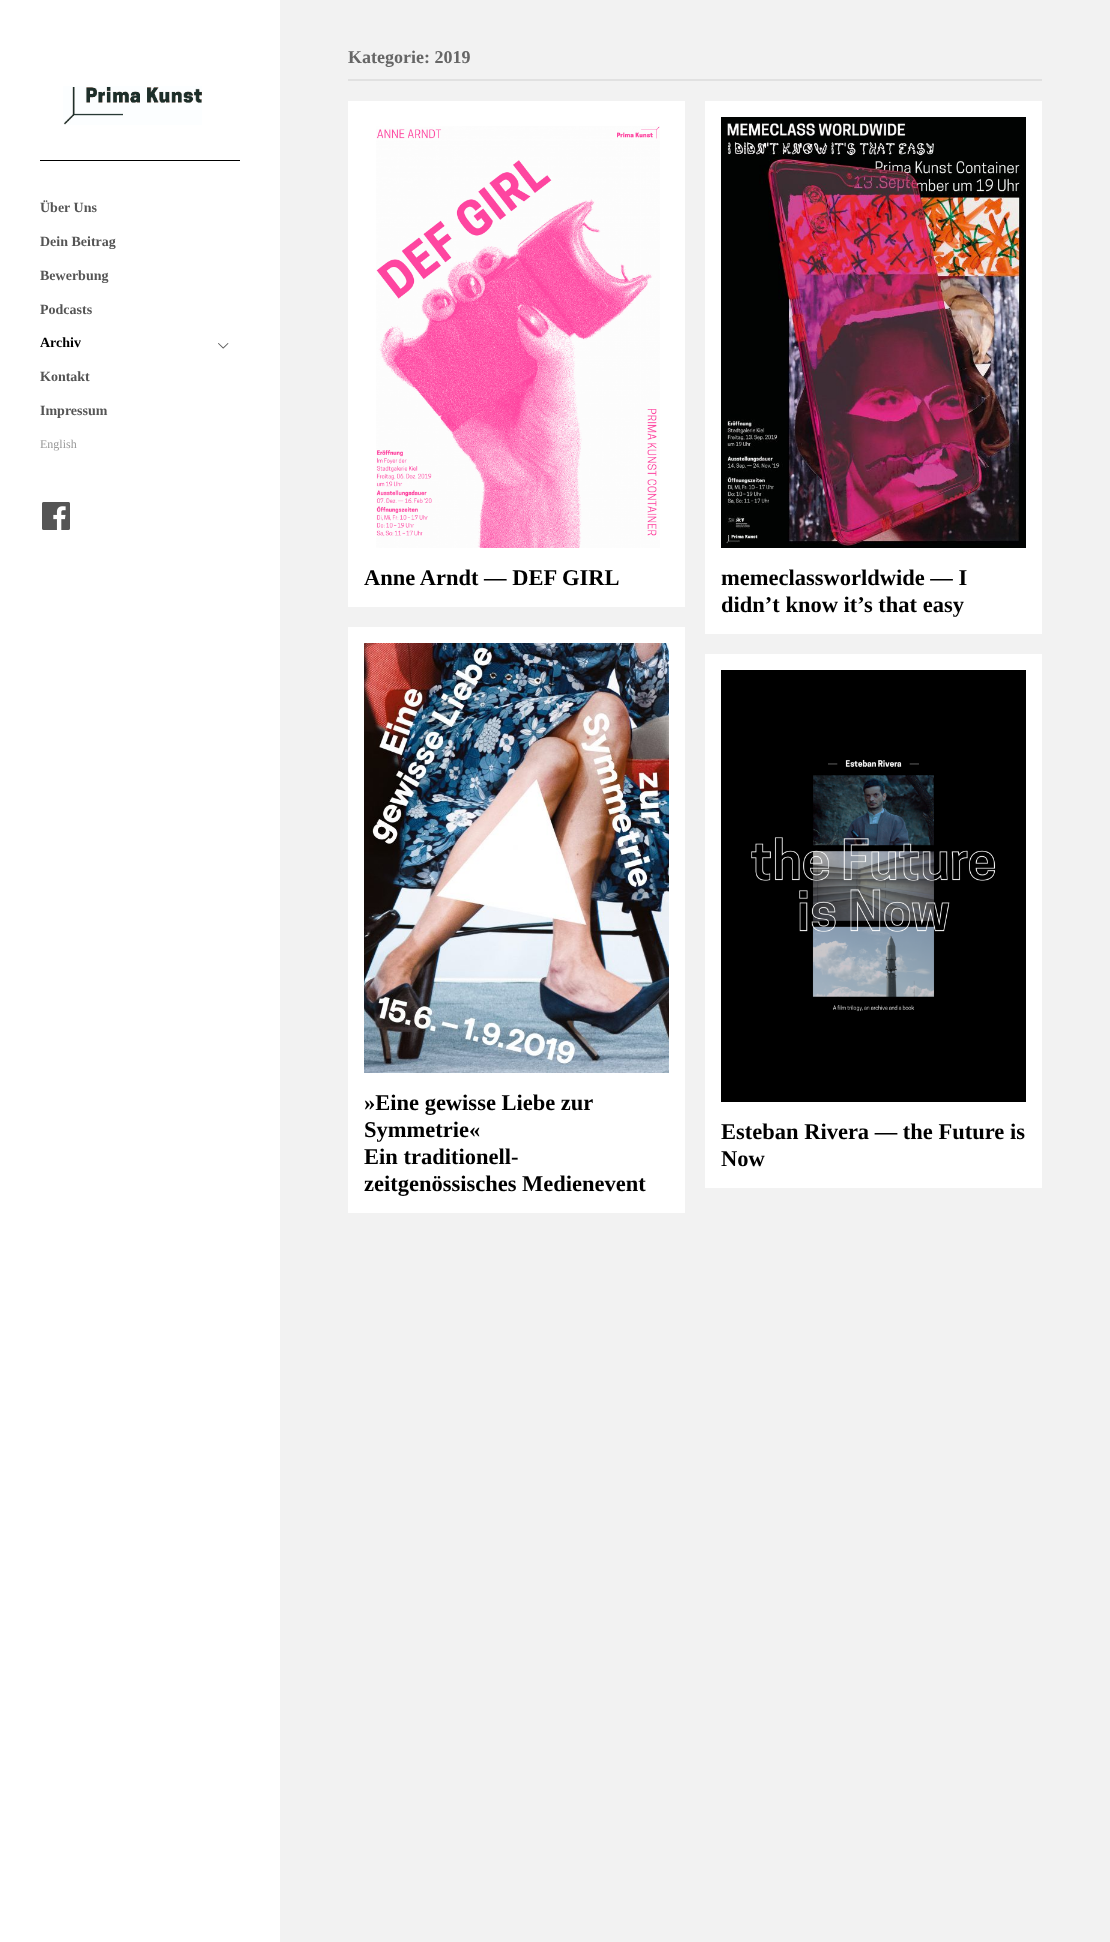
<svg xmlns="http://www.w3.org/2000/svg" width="1110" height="1942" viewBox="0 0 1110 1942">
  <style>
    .t1 { font: bold 14px Liberation Serif; fill: #555; }
    .t2 { font: bold 14px Liberation Serif; fill: #000; }
    .t3 { font: 12px Liberation Serif; fill: #999; }
    .t4 { font: bold 18px Liberation Serif; fill: #666; }
    .t5 { font: bold 22.5px Liberation Serif; fill: #000; }
  </style>
  <rect width="100%" height="100%" fill="#f2f2f2"/>
  <rect x="0" y="0" width="280" height="1942" fill="#fff"/>
  <image x="63" y="86" width="139" height="39" href="images/1.png"/>
  <rect x="40" y="160" width="200" height="1" fill="#000"/>
  <text x="40" y="212" class="t1">Über Uns</text>
  <text x="40" y="246" class="t1">Dein Beitrag</text>
  <text x="40" y="280" class="t1">Bewerbung</text>
  <text x="40" y="314" class="t1">Podcasts</text>
  <text x="40" y="347" class="t2">Archiv</text>
  <image x="218" y="343" width="11" height="6" href="images/2.png"/>
  <text x="40" y="381" class="t1">Kontakt</text>
  <text x="40" y="415" class="t1">Impressum</text>
  <text x="40" y="448" class="t3">English</text>
  <image x="42" y="502" width="28" height="28" href="images/3.png"/>
  <rect x="348" y="79" width="694" height="2" fill="#e1e1e1"/>
  <text x="348" y="63" class="t4">Kategorie: 2019</text>
  <rect x="348" y="101" width="337" height="506" fill="#fff"/>
  <image x="376" y="126" width="284" height="422" href="images/4.png"/>
  <text x="364" y="585" class="t5">Anne Arndt — DEF GIRL</text>
  <rect x="705" y="101" width="337" height="533" fill="#fff"/>
  <image x="721" y="117" width="305" height="431" href="images/5.png"/>
  <text x="721" y="585" class="t5">memeclassworldwide — I</text>
  <text x="721" y="612" class="t5">didn’t know it’s that easy</text>
  <rect x="348" y="627" width="337" height="586" fill="#fff"/>
  <image x="364" y="643" width="305" height="430" href="images/6.png"/>
  <text x="364" y="1110" class="t5">»Eine gewisse Liebe zur</text>
  <text x="364" y="1137" class="t5">Symmetrie«</text>
  <text x="364" y="1164" class="t5">Ein traditionell-</text>
  <text x="364" y="1191" class="t5">zeitgenössisches Medienevent</text>
  <rect x="705" y="654" width="337" height="534" fill="#fff"/>
  <image x="721" y="670" width="305" height="432" href="images/7.png"/>
  <text x="721" y="1139" class="t5">Esteban Rivera — the Future is</text>
  <text x="721" y="1166" class="t5">Now</text>
</svg>
